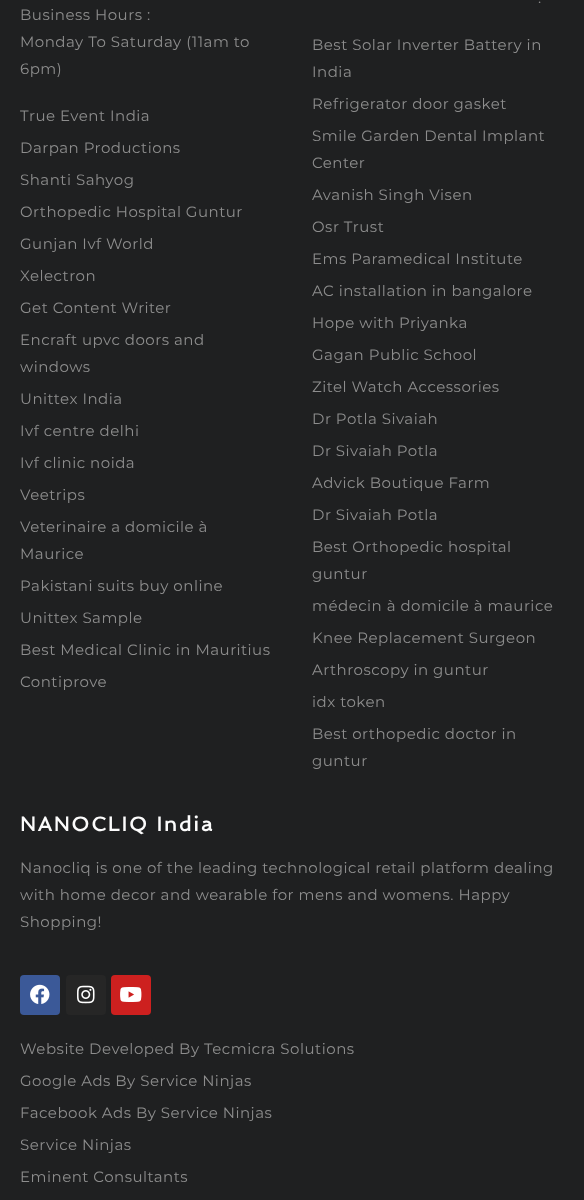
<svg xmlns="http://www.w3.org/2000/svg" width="584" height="1200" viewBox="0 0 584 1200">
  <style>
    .t1 { font: 15px Montserrat; letter-spacing: 0.5px; fill: #8d8d8d; }
    .t2 { font: bold 20px Spinnaker; letter-spacing: 2px; fill: #fcfcfc; }
  </style>
  <rect width="100%" height="100%" fill="#1f2021"/>
  <text x="20" y="20" class="t1">Business Hours :</text>
  <text x="20" y="47" class="t1">Monday To Saturday (11am to</text>
  <text x="20" y="74" class="t1">6pm)</text>
  <text x="20" y="121" class="t1">True Event India</text>
  <text x="20" y="153" class="t1">Darpan Productions</text>
  <text x="20" y="185" class="t1">Shanti Sahyog</text>
  <text x="20" y="217" class="t1">Orthopedic Hospital Guntur</text>
  <text x="20" y="249" class="t1">Gunjan Ivf World</text>
  <text x="20" y="281" class="t1">Xelectron</text>
  <text x="20" y="313" class="t1">Get Content Writer</text>
  <text x="20" y="345" class="t1">Encraft upvc doors and</text>
  <text x="20" y="372" class="t1">windows</text>
  <text x="20" y="404" class="t1">Unittex India</text>
  <text x="20" y="436" class="t1">Ivf centre delhi</text>
  <text x="20" y="468" class="t1">Ivf clinic noida</text>
  <text x="20" y="500" class="t1">Veetrips</text>
  <text x="20" y="532" class="t1">Veterinaire a domicile à</text>
  <text x="20" y="559" class="t1">Maurice</text>
  <text x="20" y="591" class="t1">Pakistani suits buy online</text>
  <text x="20" y="623" class="t1">Unittex Sample</text>
  <text x="20" y="655" class="t1">Best Medical Clinic in Mauritius</text>
  <text x="20" y="687" class="t1">Contiprove</text>
  <text x="538" y="3" class="t1">.</text>
  <text x="312" y="50" class="t1">Best Solar Inverter Battery in</text>
  <text x="312" y="77" class="t1">India</text>
  <text x="312" y="109" class="t1">Refrigerator door gasket</text>
  <text x="312" y="141" class="t1">Smile Garden Dental Implant</text>
  <text x="312" y="168" class="t1">Center</text>
  <text x="312" y="200" class="t1">Avanish Singh Visen</text>
  <text x="312" y="232" class="t1">Osr Trust</text>
  <text x="312" y="264" class="t1">Ems Paramedical Institute</text>
  <text x="312" y="296" class="t1">AC installation in bangalore</text>
  <text x="312" y="328" class="t1">Hope with Priyanka</text>
  <text x="312" y="360" class="t1">Gagan Public School</text>
  <text x="312" y="392" class="t1">Zitel Watch Accessories</text>
  <text x="312" y="424" class="t1">Dr Potla Sivaiah</text>
  <text x="312" y="456" class="t1">Dr Sivaiah Potla</text>
  <text x="312" y="488" class="t1">Advick Boutique Farm</text>
  <text x="312" y="520" class="t1">Dr Sivaiah Potla</text>
  <text x="312" y="552" class="t1">Best Orthopedic hospital</text>
  <text x="312" y="579" class="t1">guntur</text>
  <text x="312" y="611" class="t1">médecin à domicile à maurice</text>
  <text x="312" y="643" class="t1">Knee Replacement Surgeon</text>
  <text x="312" y="675" class="t1">Arthroscopy in guntur</text>
  <text x="312" y="707" class="t1">idx token</text>
  <text x="312" y="739" class="t1">Best orthopedic doctor in</text>
  <text x="312" y="766" class="t1">guntur</text>
  <text x="20" y="831" class="t2">NANOCLIQ India</text>
  <text x="20" y="873" class="t1">Nanocliq is one of the leading technological retail platform dealing</text>
  <text x="20" y="900" class="t1">with home decor and wearable for mens and womens. Happy</text>
  <text x="20" y="927" class="t1">Shopping!</text>
  <rect x="20" y="975" width="40" height="40" rx="4" fill="#3b5998"/>
  <image x="30" y="984" width="20" height="20" href="images/1.png"/>
  <rect x="66" y="975" width="40" height="40" rx="4" fill="#262626"/>
  <image x="77" y="985" width="18" height="19" href="images/2.png"/>
  <rect x="111" y="975" width="40" height="40" rx="4" fill="#cd201f"/>
  <image x="120" y="987" width="22" height="15" href="images/3.png"/>
  <text x="20" y="1054" class="t1">Website Developed By Tecmicra Solutions</text>
  <text x="20" y="1086" class="t1">Google Ads By Service Ninjas</text>
  <text x="20" y="1118" class="t1">Facebook Ads By Service Ninjas</text>
  <text x="20" y="1150" class="t1">Service Ninjas</text>
  <text x="20" y="1182" class="t1">Eminent Consultants</text>
</svg>
